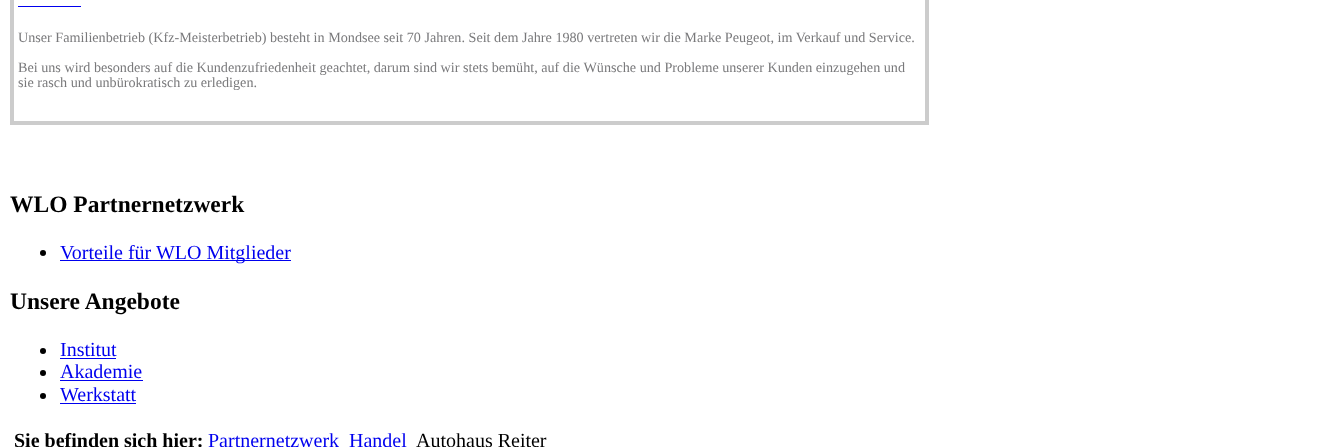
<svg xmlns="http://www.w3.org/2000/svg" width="1319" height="447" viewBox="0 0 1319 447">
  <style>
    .t1 { font: 14.17px Liberation Serif; fill: #79797b; }
    .t2 { font: bold 23.5px Liberation Serif; fill: #000; }
    .t3 { font: 20px Liberation Serif; fill: #00e; }
    .t4 { font: bold 20px Liberation Serif; fill: #000; }
    .t5 { font: 20px Liberation Serif; fill: #000; }
  </style>
  <rect width="100%" height="100%" fill="#fff"/>
  <rect x="12" y="-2" width="915" height="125" fill="none" stroke="#ccc" stroke-width="4"/>
  <rect x="18" y="6" width="63" height="1" fill="#00e"/>
  <text x="18" y="42" class="t1">Unser Familienbetrieb (Kfz-Meisterbetrieb) besteht in Mondsee seit 70 Jahren. Seit dem Jahre 1980 vertreten wir die Marke Peugeot, im Verkauf und Service.</text>
  <text x="18" y="72" class="t1">Bei uns wird besonders auf die Kundenzufriedenheit geachtet, darum sind wir stets bemüht, auf die Wünsche und Probleme unserer Kunden einzugehen und</text>
  <text x="18" y="87" class="t1">sie rasch und unbürokratisch zu erledigen.</text>
  <text x="10" y="212" class="t2">WLO Partnernetzwerk</text>
  <circle cx="43" cy="253" r="3" fill="#000"/>
  <rect x="60" y="260" width="231" height="1" fill="#00e"/>
  <text x="60" y="259" class="t3">Vorteile für WLO Mitglieder</text>
  <text x="10" y="309" class="t2">Unsere Angebote</text>
  <circle cx="43" cy="351" r="3" fill="#000"/>
  <text x="60" y="356" class="t3">Institut</text>
  <rect x="60" y="358" width="56" height="1" fill="#00e"/>
  <circle cx="43" cy="373" r="3" fill="#000"/>
  <text x="60" y="378" class="t3">Akademie</text>
  <rect x="60" y="380" width="83" height="1" fill="#00e"/>
  <circle cx="43" cy="396" r="3" fill="#000"/>
  <text x="60" y="401" class="t3">Werkstatt</text>
  <rect x="60" y="403" width="76" height="1" fill="#00e"/>
  <text x="14" y="447" class="t4">Sie befinden sich hier:</text>
  <text x="208" y="447" class="t3">Partnernetzwerk</text>
  <text x="349" y="447" class="t3">Handel</text>
  <text x="416" y="447" class="t5">Autohaus Reiter</text>
</svg>
